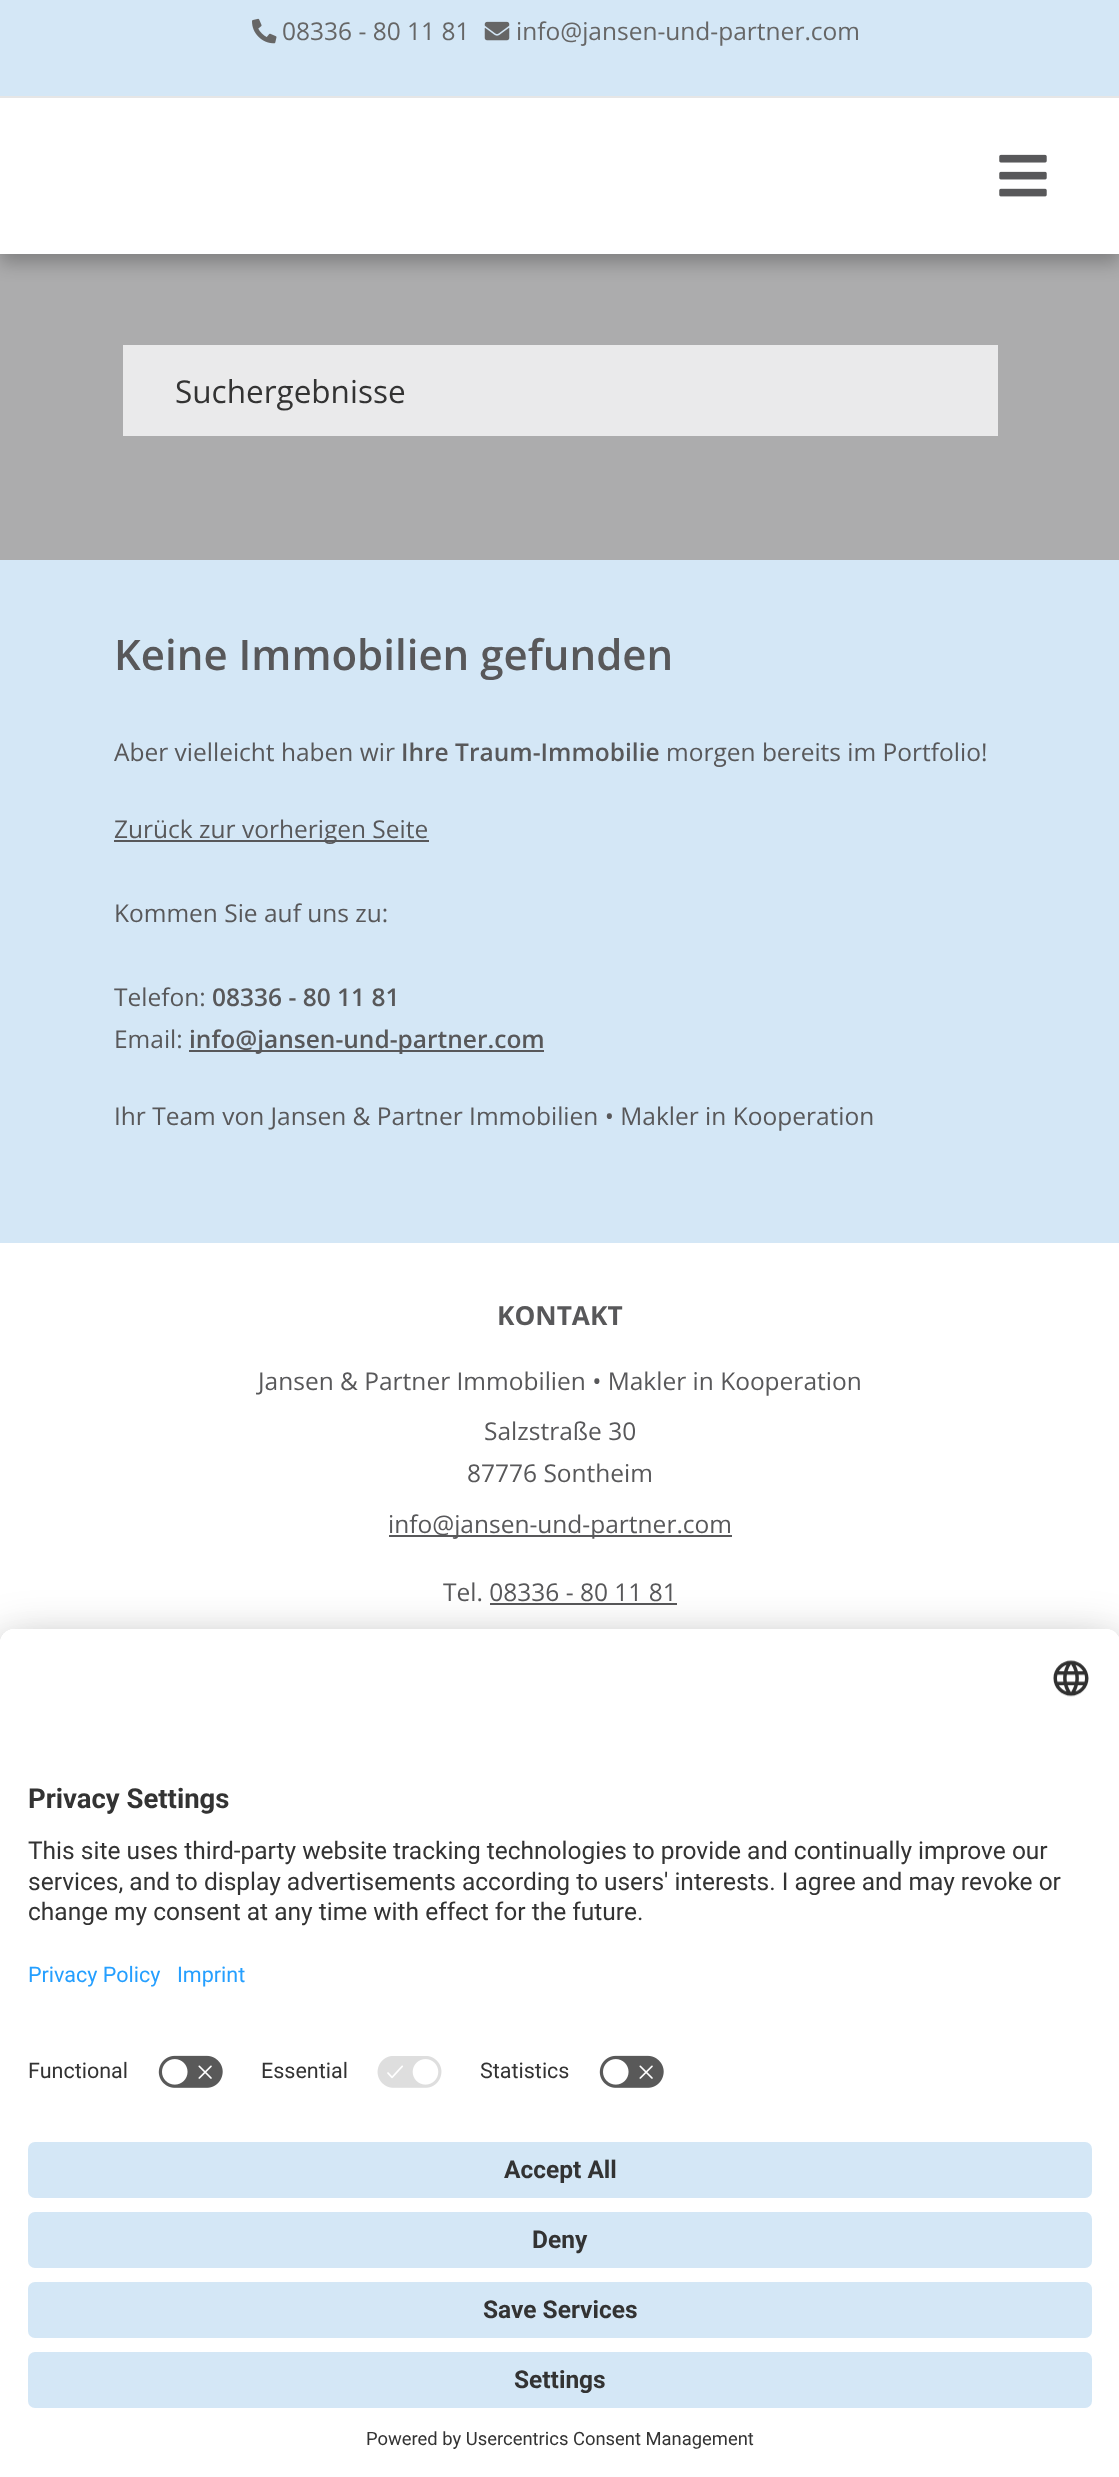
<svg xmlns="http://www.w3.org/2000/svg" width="1119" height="2477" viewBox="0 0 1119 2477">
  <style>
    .t1 { font: 24.5px Open Sans; fill: #666; }
    .t2 { font: 31.5px Open Sans; fill: #333; }
    .t3 { font: 600 42px Open Sans; fill: #58585a; }
    .t4 { font: 24.5px Open Sans; fill: #58585a; }
    .t5 { font: 600 24.5px Open Sans; fill: #58585a; }
    .t6 { font: bold 26.25px Open Sans; fill: #58585a; }
    .t7 { font: bold 27.5px Roboto; fill: #333; }
    .t8 { font: 24.5px Roboto; fill: #333; }
    .t9 { font: 21.5px Roboto; fill: #259fff; }
    .t10 { font: 21.5px Roboto; fill: #333; }
    .t11 { font: bold 24.5px Roboto; fill: #333; }
    .t12 { font: 18.4px Roboto; fill: #333; }
  </style>
  <rect width="100%" height="100%" fill="#fff"/>
  <rect x="0" y="254" width="1119" height="306" fill="#acacad"/>
  <rect x="0" y="107" width="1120" height="156" fill="#00000040" filter="blur(9px)"/>
  <rect x="0" y="0" width="1119" height="96" fill="#d4e7f6"/>
  <rect x="0" y="96" width="1119" height="2" fill="#e6e6e6"/>
  <image x="252" y="18" width="25" height="26" href="images/1.png"/>
  <text x="282" y="40" class="t1">08336 - 80 11 81</text>
  <image x="484" y="21" width="26" height="20" href="images/2.png"/>
  <text x="516" y="40" class="t1">info@jansen-und-partner.com</text>
  <rect x="0" y="98" width="1119" height="156" fill="#fff"/>
  <image x="999" y="154" width="48" height="43" href="images/3.png"/>
  <rect x="123" y="345" width="875" height="91" fill="#eaeaeb"/>
  <text x="175" y="403" class="t2">Suchergebnisse</text>
  <rect x="0" y="560" width="1119" height="683" fill="#d4e7f6"/>
  <text x="114" y="670" class="t3">Keine Immobilien gefunden</text>
  <text x="114" y="761" class="t4">Aber vielleicht haben wir</text>
  <text x="401" y="761" class="t5">Ihre Traum-Immobilie</text>
  <text x="666" y="761" class="t4">morgen bereits im Portfolio!</text>
  <rect x="114" y="840" width="315" height="2" fill="#58585a"/>
  <text x="114" y="838" class="t4">Zurück zur vorherigen Seite</text>
  <text x="114" y="922" class="t4">Kommen Sie auf uns zu:</text>
  <text x="114" y="1006" class="t4">Telefon:</text>
  <text x="212" y="1006" class="t5">08336 - 80 11 81</text>
  <text x="114" y="1048" class="t4">Email:</text>
  <rect x="189" y="1050" width="355" height="2" fill="#58585a"/>
  <text x="189" y="1048" class="t5">info@jansen-und-partner.com</text>
  <text x="114" y="1125" class="t4">Ihr Team von Jansen &amp; Partner Immobilien • Makler in Kooperation</text>
  <text x="497" y="1325" class="t6">KONTAKT</text>
  <text x="258" y="1390" class="t4">Jansen &amp; Partner Immobilien • Makler in Kooperation</text>
  <text x="484" y="1440" class="t4">Salzstraße 30</text>
  <text x="467" y="1482" class="t4">87776 Sontheim</text>
  <rect x="389" y="1535" width="343" height="2" fill="#58585a"/>
  <text x="388" y="1533" class="t4">info@jansen-und-partner.com</text>
  <text x="443" y="1601" class="t4">Tel. 08336 - 80 11 81</text>
  <rect x="490" y="1603" width="187" height="2" fill="#58585a"/>
  <rect x="0" y="1664" width="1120" height="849" rx="14" fill="#0000004d" filter="blur(24.5px)"/>
  <rect x="0" y="1638" width="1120" height="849" rx="14" fill="#00000038" filter="blur(23px)"/>
  <path d="M14 1629H1106C1113.5 1629 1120 1635.5 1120 1643V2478H0V1643C0 1635.5 6.5 1629 14 1629Z" fill="#fff"/>
  <path d="M14 1629H1106C1113.5 1629 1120 1635.5 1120 1643V2121H0V1643C0 1635.5 6.5 1629 14 1629Z" fill="#fff"/>
  <path d="M14 1629H1106C1113.5 1629 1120 1635.5 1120 1643V2044H0V1643C0 1635.5 6.5 1629 14 1629Z" fill="#fff"/>
  <image x="1053" y="1660" width="36" height="37" href="images/4.png"/>
  <text x="28" y="1808" class="t7">Privacy Settings</text>
  <text x="28" y="1859" class="t8">This site uses third-party website tracking technologies to provide and continually improve our</text>
  <text x="28" y="1890" class="t8">services, and to display advertisements according to users' interests. I agree and may revoke or</text>
  <text x="28" y="1920" class="t8">change my consent at any time with effect for the future.</text>
  <text x="28" y="1982" class="t9">Privacy Policy</text>
  <text x="177" y="1982" class="t9">Imprint</text>
  <text x="28" y="2078" class="t10">Functional</text>
  <image x="158" y="2055" width="65" height="33" href="images/5.png"/>
  <text x="261" y="2078" class="t10">Essential</text>
  <image x="377" y="2056" width="65" height="32" href="images/6.png"/>
  <text x="480" y="2078" class="t10">Statistics</text>
  <image x="599" y="2055" width="65" height="33" href="images/5.png"/>
  <rect x="28" y="2142" width="1064" height="56" rx="7" fill="#d4e7f6"/>
  <text x="504" y="2178" class="t11">Accept All</text>
  <rect x="28" y="2212" width="1064" height="56" rx="7" fill="#d4e7f6"/>
  <text x="532" y="2248" class="t11">Deny</text>
  <rect x="28" y="2282" width="1064" height="56" rx="7" fill="#d4e7f6"/>
  <text x="483" y="2318" class="t11">Save Services</text>
  <rect x="28" y="2352" width="1064" height="56" rx="7" fill="#d4e7f6"/>
  <text x="514" y="2388" class="t11">Settings</text>
  <text x="366" y="2445" class="t12">Powered by Usercentrics Consent Management</text>
</svg>
